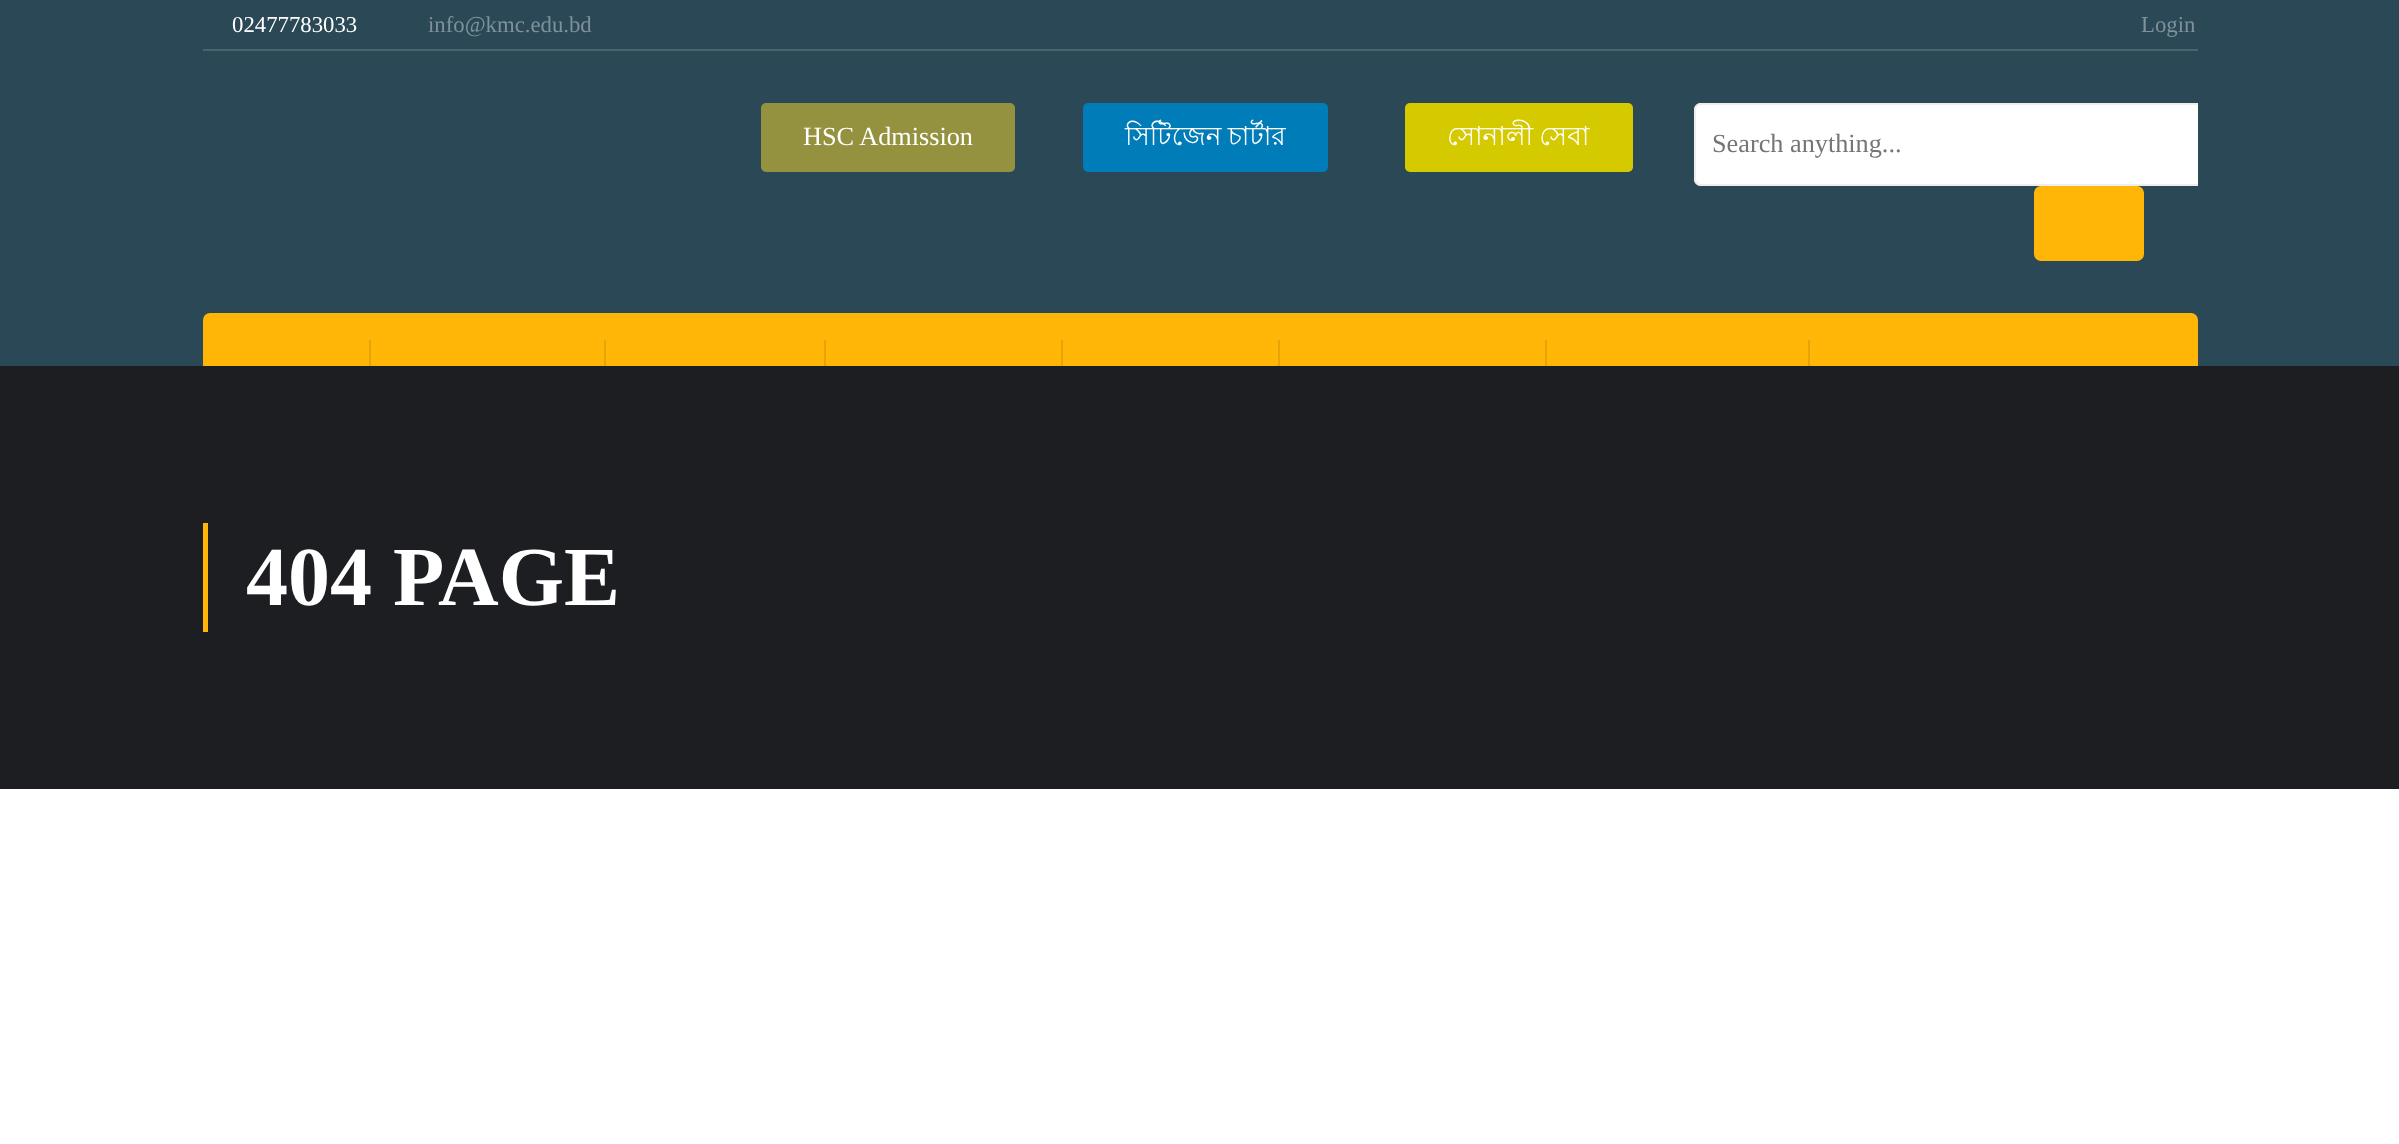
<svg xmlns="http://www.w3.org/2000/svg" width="2399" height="1144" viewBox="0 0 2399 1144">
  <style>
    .t1 { font: 22.75px Liberation Serif; fill: #fff; }
    .t2 { font: 22.75px Liberation Serif; fill: #7f919a; }
    .t3 { font: 26.25px Liberation Serif; fill: #fff; }
    .t4 { font: 26.25px Lohit Bengali; fill: #fff; }
    .t5 { font: 26.25px Liberation Serif; fill: #757575; }
    .t6 { font: bold 84px Liberation Serif; fill: #fff; }
  </style>
  <defs>
    <clipPath id="clip1"><rect x="728" y="86" width="1470" height="192"/></clipPath>
  </defs>
  <rect width="100%" height="100%" fill="#2a4856"/>
  <text x="232" y="32" class="t1">02477783033</text>
  <text x="428" y="32" class="t2">info@kmc.edu.bd</text>
  <text x="2141" y="32" class="t2">Login</text>
  <rect x="203" y="49" width="1995" height="2" fill="#4a636f"/>
  <rect x="761" y="103" width="254" height="69" rx="5" fill="#95923f"/>
  <text x="803" y="145" class="t3">HSC Admission</text>
  <rect x="1083" y="103" width="245" height="69" rx="5" fill="#007cb8"/>
  <text x="1125" y="145" word-spacing="-1" class="t4">সিটিজেন চার্টার</text>
  <rect x="1405" y="103" width="228" height="69" rx="5" fill="#d5ca00"/>
  <text x="1447" y="145" word-spacing="-1" class="t4">সোনালী সেবা</text>
  <path d="M1701 103H2198V186H1701C1697 186 1694 183 1694 179V110C1694 106 1697 103 1701 103Z" fill="#fff"/>
  <g clip-path="url(#clip1)">
    <rect x="1695" y="104" width="514" height="81" rx="6" fill="none" stroke="#eee" stroke-width="2"/>
  </g>
  <text x="1712" y="152" class="t5">Search anything...</text>
  <rect x="2034" y="186" width="110" height="75" rx="7" fill="#ffb606"/>
  <rect x="203" y="313" width="1995" height="105" rx="7" fill="#ffb606"/>
  <rect x="369" y="340" width="2" height="26" fill="#e6a405"/>
  <rect x="604" y="340" width="2" height="26" fill="#e6a405"/>
  <rect x="824" y="340" width="2" height="26" fill="#e6a405"/>
  <rect x="1061" y="340" width="2" height="26" fill="#e6a405"/>
  <rect x="1278" y="340" width="2" height="26" fill="#e6a405"/>
  <rect x="1545" y="340" width="2" height="26" fill="#e6a405"/>
  <rect x="1808" y="340" width="2" height="26" fill="#e6a405"/>
  <rect x="0" y="789" width="2399" height="355" fill="#fff"/>
  <rect x="0" y="366" width="2399" height="423" fill="#1c1e22"/>
  <rect x="203" y="523" width="5" height="109" fill="#ffb606"/>
  <text x="246" y="605" class="t6">404 PAGE</text>
</svg>
